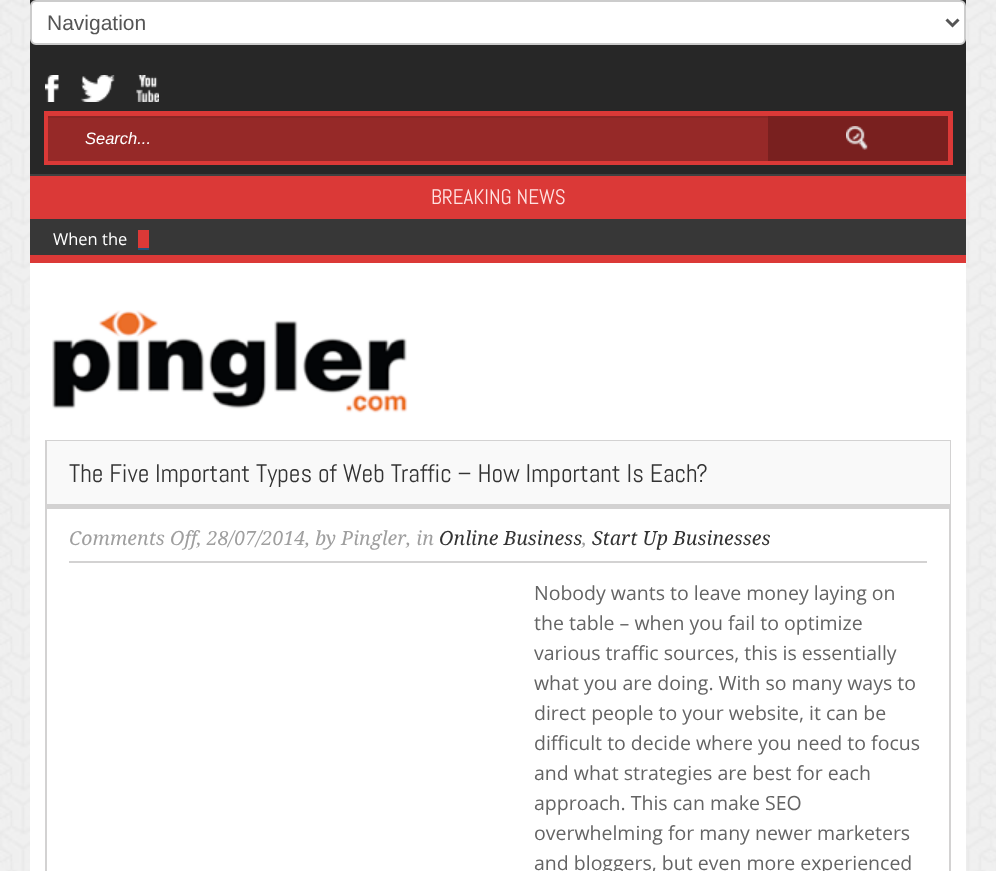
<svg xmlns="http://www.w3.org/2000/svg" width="996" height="871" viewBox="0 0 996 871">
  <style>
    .t1 { font: 21px Liberation Sans; fill: #555; }
    .t2 { font: italic 16.5px Liberation Sans; fill: #fff; }
    .t3 { font: 21px Abel; fill: #ffe2e2; }
    .t4 { font: 16.5px Open Sans; fill: #fff; }
    .t5 { font: 25.5px Abel; fill: #333; }
    .t6 { font: italic 19.5px Droid Serif; fill: #9f9f9f; }
    .t7 { font: italic 19.5px Droid Serif; fill: #333; }
    .t8 { font: 19.5px Open Sans; fill: #646464; }
  </style>
  <rect width="100%" height="100%" fill="#fff"/>
  <image x="0" y="0" width="996" height="871" href="images/1.png"/>
  <rect x="30" y="263" width="936" height="608" fill="#fff"/>
  <rect x="30" y="0" width="936" height="174" fill="#272727"/>
  <rect x="30" y="174" width="936" height="2" fill="#414141"/>
  <rect x="31" y="1" width="934" height="43" rx="5" fill="#fff" stroke="#ccc" stroke-width="2"/>
  <path d="M946.5 19.5L952.5 25.5L958.5 19.5" fill="none" stroke="#555" stroke-width="3"/>
  <text x="47" y="30" class="t1">Navigation</text>
  <image x="45" y="75" width="14" height="27" href="images/2.png"/>
  <image x="80" y="75" width="35" height="27" href="images/3.png"/>
  <image x="136" y="75" width="23" height="27" href="images/4.png"/>
  <rect x="46.5" y="113.5" width="904" height="49" fill="none" stroke="#db3937" stroke-width="5"/>
  <rect x="48" y="118" width="720" height="43" fill="#962928"/>
  <rect x="48" y="116" width="720" height="2" fill="#8b2625"/>
  <text x="85" y="144" class="t2">Search...</text>
  <rect x="768" y="116" width="180" height="45" fill="#79201f"/>
  <image x="846" y="126" width="22" height="24" href="images/5.png"/>
  <rect x="30" y="219" width="936" height="36" fill="#373737"/>
  <rect x="30" y="255" width="936" height="8" fill="#db3937"/>
  <rect x="30" y="176" width="936" height="43" fill="#db3937"/>
  <text x="431" y="204" class="t3">BREAKING NEWS</text>
  <text x="53" y="245" class="t4">When the</text>
  <rect x="138" y="230" width="11" height="18" fill="#db3937"/>
  <rect x="138" y="248" width="11" height="2" fill="#1f527b"/>
  <image x="52" y="310" width="356" height="103" href="images/6.png"/>
  <rect x="46" y="441" width="904" height="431" fill="none" stroke="#d3d2d2" stroke-width="2"/>
  <rect x="47" y="441" width="903" height="63" fill="#f9f9f9"/>
  <rect x="47" y="504" width="903" height="5" fill="#d3d2d2"/>
  <text x="69" y="482" class="t5">The Five Important Types of Web Traffic – How Important Is Each?</text>
  <rect x="69" y="561" width="858" height="2" fill="#d3d2d2"/>
  <text x="69" y="545" class="t6">Comments Off, 28/07/2014, by Pingler, in</text>
  <text x="439" y="545" class="t7">Online Business</text>
  <text x="582" y="545" class="t6">,</text>
  <text x="592" y="545" class="t7">Start Up Businesses</text>
  <text x="534" y="600" class="t8">Nobody wants to leave money laying on</text>
  <text x="534" y="630" class="t8">the table – when you fail to optimize</text>
  <text x="534" y="660" class="t8">various traffic sources, this is essentially</text>
  <text x="534" y="690" class="t8">what you are doing. With so many ways to</text>
  <text x="534" y="720" class="t8">direct people to your website, it can be</text>
  <text x="534" y="750" class="t8">difficult to decide where you need to focus</text>
  <text x="534" y="780" class="t8">and what strategies are best for each</text>
  <text x="534" y="810" class="t8">approach. This can make SEO</text>
  <text x="534" y="840" class="t8">overwhelming for many newer marketers</text>
  <text x="534" y="870" class="t8">and bloggers, but even more experienced</text>
</svg>
